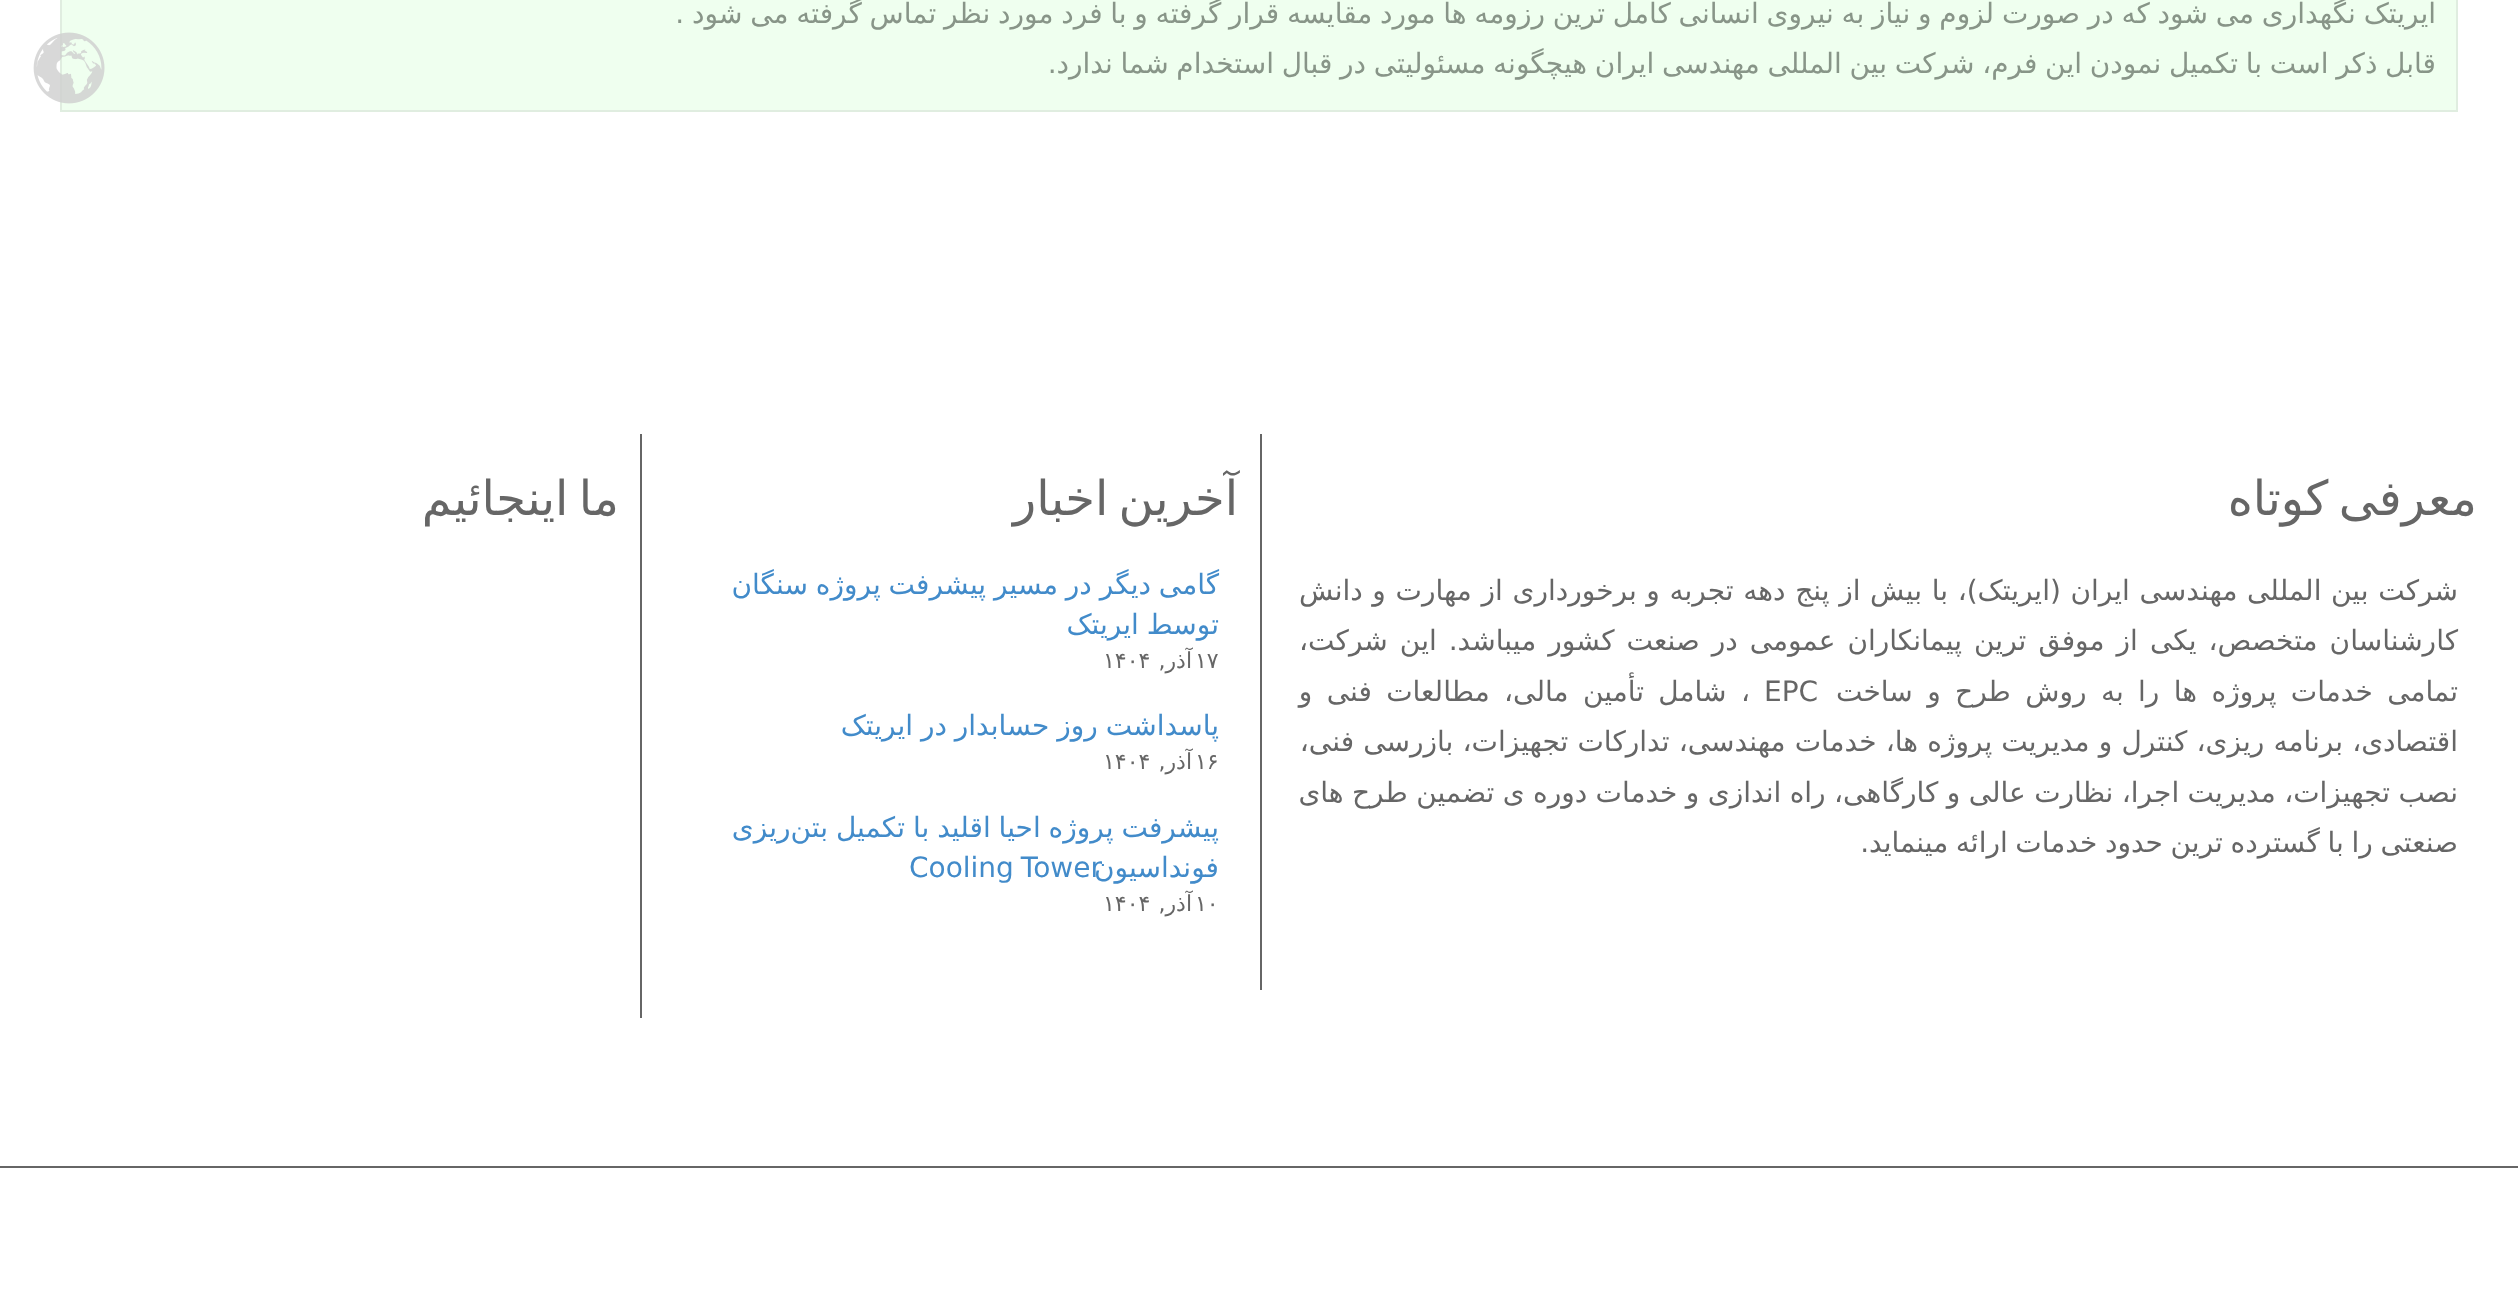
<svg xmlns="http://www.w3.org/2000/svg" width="2518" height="1289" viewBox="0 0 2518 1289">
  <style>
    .t1 { font: 28px DejaVu Sans; direction: rtl; fill: #889588; }
    .t2 { font: 48px DejaVu Sans; letter-spacing: 2px; direction: rtl; fill: #666; }
    .t3 { font: 28px DejaVu Sans; direction: rtl; fill: #666; }
    .t4 { font: 28px DejaVu Sans; fill: #666; }
    .t5 { font: 28px DejaVu Sans; direction: rtl; fill: #428bca; }
    .t6 { font: 22px DejaVu Sans; letter-spacing: 2px; fill: #666; }
    .t7 { font: 22px DejaVu Sans; letter-spacing: 2px; direction: rtl; fill: #666; }
    .t8 { font: 28px DejaVu Sans; fill: #428bca; }
  </style>
  <rect width="100%" height="100%" fill="#fff"/>
  <rect x="61" y="-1" width="2396" height="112" fill="#efffef" stroke="#e0ede0" stroke-width="2"/>
  <text x="2436" y="23" word-spacing="-1.15" class="t1">ایریتک نگهداری می شود که در صورت لزوم و نیاز به نیروی انسانی کامل ترین رزومه ها مورد مقایسه قرار گرفته و با فرد مورد نظر تماس گرفته می شود .</text>
  <text x="2436" y="73" word-spacing="-1.2" class="t1">قابل ذکر است با تکمیل نمودن این فرم، شرکت بین المللی مهندسی ایران هیچگونه مسئولیتی در قبال استخدام شما ندارد.</text>
  <text x="2477" y="515" word-spacing="-5" class="t2">معرفی کوتاه</text>
  <text x="2458" y="600" word-spacing="0.75" class="t3">شرکت بین المللی مهندسی ایران (ایریتک)، با بیش از پنج دهه تجربه و برخورداری از مهارت و دانش</text>
  <text x="2458" y="650" word-spacing="3.1" class="t3">کارشناسان متخصص، یکی از موفق ترین پیمانکاران عمومی در صنعت کشور میباشد. این شرکت،</text>
  <text x="2458" y="701" word-spacing="5.5" class="t3">تمامی خدمات پروژه ها را به روش طرح و ساخت</text>
  <text x="1764" y="701" class="t4">EPC</text>
  <text x="1750" y="701" word-spacing="5.5" class="t3">، شامل تأمین مالی، مطالعات فنی و</text>
  <text x="2458" y="751" word-spacing="0.25" class="t3">اقتصادی، برنامه ریزی، کنترل و مدیریت پروژه ها، خدمات مهندسی، تدارکات تجهیزات، بازرسی فنی،</text>
  <text x="2458" y="802" word-spacing="-0.5" class="t3">نصب تجهیزات، مدیریت اجرا، نظارت عالی و کارگاهی، راه اندازی و خدمات دوره ی تضمین طرح های</text>
  <text x="2458" y="852" word-spacing="-1.25" class="t3">صنعتی را با گسترده ترین حدود خدمات ارائه مینماید.</text>
  <rect x="1260" y="434" width="2" height="556" fill="#666"/>
  <text x="1238" y="515" word-spacing="-5" class="t2">آخرین اخبار</text>
  <text x="1219" y="594" word-spacing="-1" class="t5">گامی دیگر در مسیر پیشرفت پروژه سنگان</text>
  <text x="1219" y="634" word-spacing="-1" class="t5">توسط ایریتک</text>
  <text x="1195" y="668" class="t6">۱۷</text>
  <text x="1103" y="668" class="t6">۱۴۰۴</text>
  <text x="1192" y="668" class="t7">آذر,</text>
  <text x="1219" y="735" word-spacing="-1" class="t5">پاسداشت روز حسابدار در ایریتک</text>
  <text x="1195" y="769" class="t6">۱۶</text>
  <text x="1103" y="769" class="t6">۱۴۰۴</text>
  <text x="1192" y="769" class="t7">آذر,</text>
  <text x="1219" y="837" word-spacing="-1" class="t5">پیشرفت پروژه احیا اقلید با تکمیل بتن‌ریزی</text>
  <text x="909" y="877" word-spacing="-2" class="t8">Cooling Tower</text>
  <text x="1219" y="877" class="t5">فونداسیون</text>
  <text x="1195" y="911" class="t6">۱۰</text>
  <text x="1103" y="911" class="t6">۱۴۰۴</text>
  <text x="1192" y="911" class="t7">آذر,</text>
  <rect x="640" y="434" width="2" height="584" fill="#666"/>
  <text x="619" y="515" word-spacing="-5" class="t2">ما اینجائیم</text>
  <rect x="0" y="1166" width="2518" height="2" fill="#666"/>
  <image x="33" y="32" width="72" height="72" href="images/1.png"/>
</svg>
